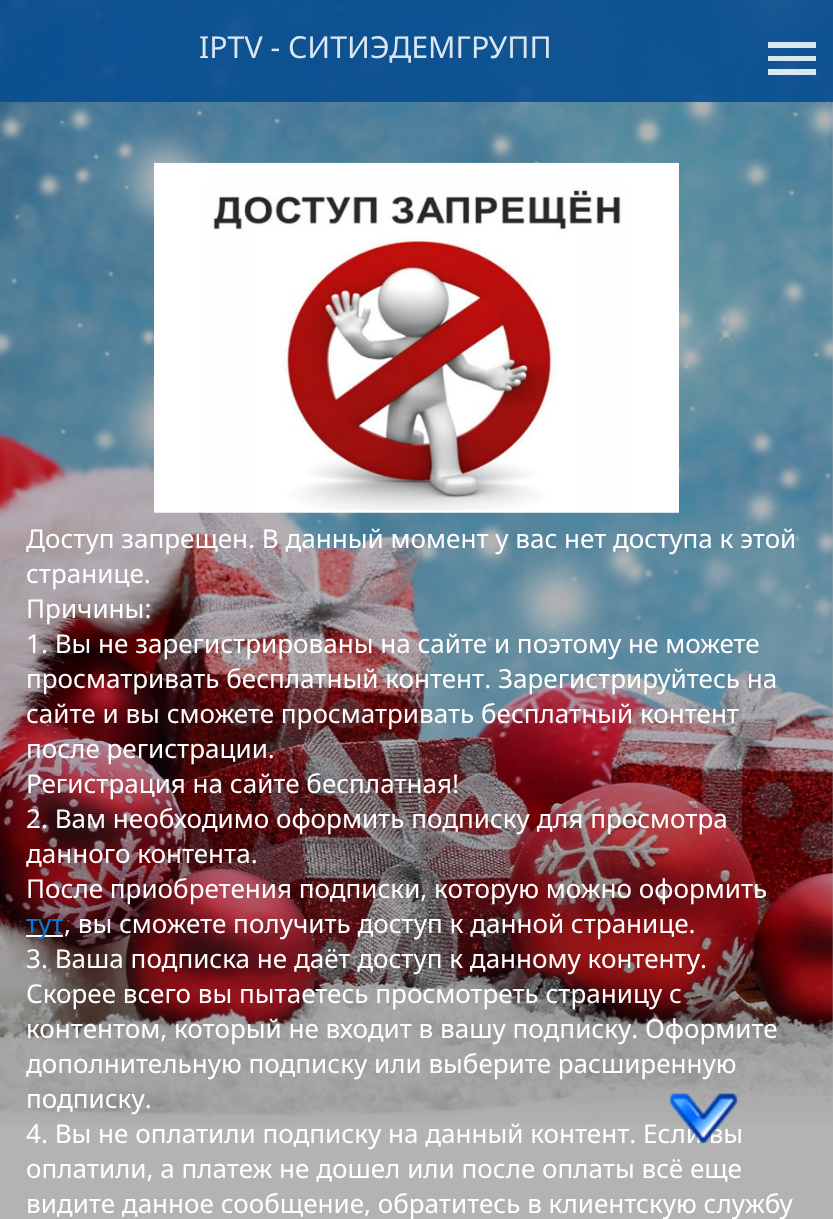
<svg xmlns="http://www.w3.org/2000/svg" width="833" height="1219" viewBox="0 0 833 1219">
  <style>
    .t1 { font: 30.25px Noto Sans; fill: #dae7f2; }
    .t2 { font: 26.05px Noto Sans; fill: #fff; }
    .t3 { font: 26.05px Noto Sans; fill: #0b79d9; }
  </style>
  <rect width="100%" height="100%" fill="#fff"/>
  <rect x="0" y="102" width="833" height="1117" fill="#b3b3b3"/>
  <image x="0" y="0" width="833" height="1126" href="images/1.png"/>
  <rect x="0" y="0" width="833" height="102" fill="#074a8ced"/>
  <text x="199" y="58" class="t1">IPTV - СИТИЭДЕМГРУПП</text>
  <path d="M768 42H816V48H768ZM768 61V56H816V61ZM768 75V69H816V75Z" fill="#dae7f2"/>
  <image x="154" y="162" width="525" height="351" href="images/2.png"/>
  <text x="26" y="548" class="t2">Доступ запрещен. В данный момент у вас нет доступа к этой</text>
  <text x="26" y="583" class="t2">странице.</text>
  <text x="26" y="618" class="t2">Причины:</text>
  <text x="26" y="653" class="t2">1. Вы не зарегистрированы на сайте и поэтому не можете</text>
  <text x="26" y="688" class="t2">просматривать бесплатный контент. Зарегистрируйтесь на</text>
  <text x="26" y="723" class="t2">сайте и вы сможете просматривать бесплатный контент</text>
  <text x="26" y="758" class="t2">после регистрации.</text>
  <text x="26" y="793" class="t2">Регистрация на сайте бесплатная!</text>
  <text x="26" y="828" class="t2">2. Вам необходимо оформить подписку для просмотра</text>
  <text x="26" y="863" class="t2">данного контента.</text>
  <text x="26" y="898" class="t2">После приобретения подписки, которую можно оформить</text>
  <rect x="26" y="935" width="37" height="2" fill="#fff"/>
  <text x="26" y="933" class="t3">тут</text>
  <text x="64" y="933" class="t2">, вы сможете получить доступ к данной странице.</text>
  <text x="26" y="968" class="t2">3. Ваша подписка не даёт доступ к данному контенту.</text>
  <text x="26" y="1003" class="t2">Скорее всего вы пытаетесь просмотреть страницу с</text>
  <text x="26" y="1038" class="t2">контентом, который не входит в вашу подписку. Оформите</text>
  <text x="26" y="1073" class="t2">дополнительную подписку или выберите расширенную</text>
  <text x="26" y="1108" class="t2">подписку.</text>
  <text x="26" y="1143" class="t2">4. Вы не оплатили подписку на данный контент. Если вы</text>
  <text x="26" y="1178" class="t2">оплатили, а платеж не дошел или после оплаты всё еще</text>
  <text x="26" y="1213" class="t2">видите данное сообщение, обратитесь в клиентскую службу</text>
  <image x="669" y="1093" width="69" height="51" href="images/3.png"/>
</svg>
